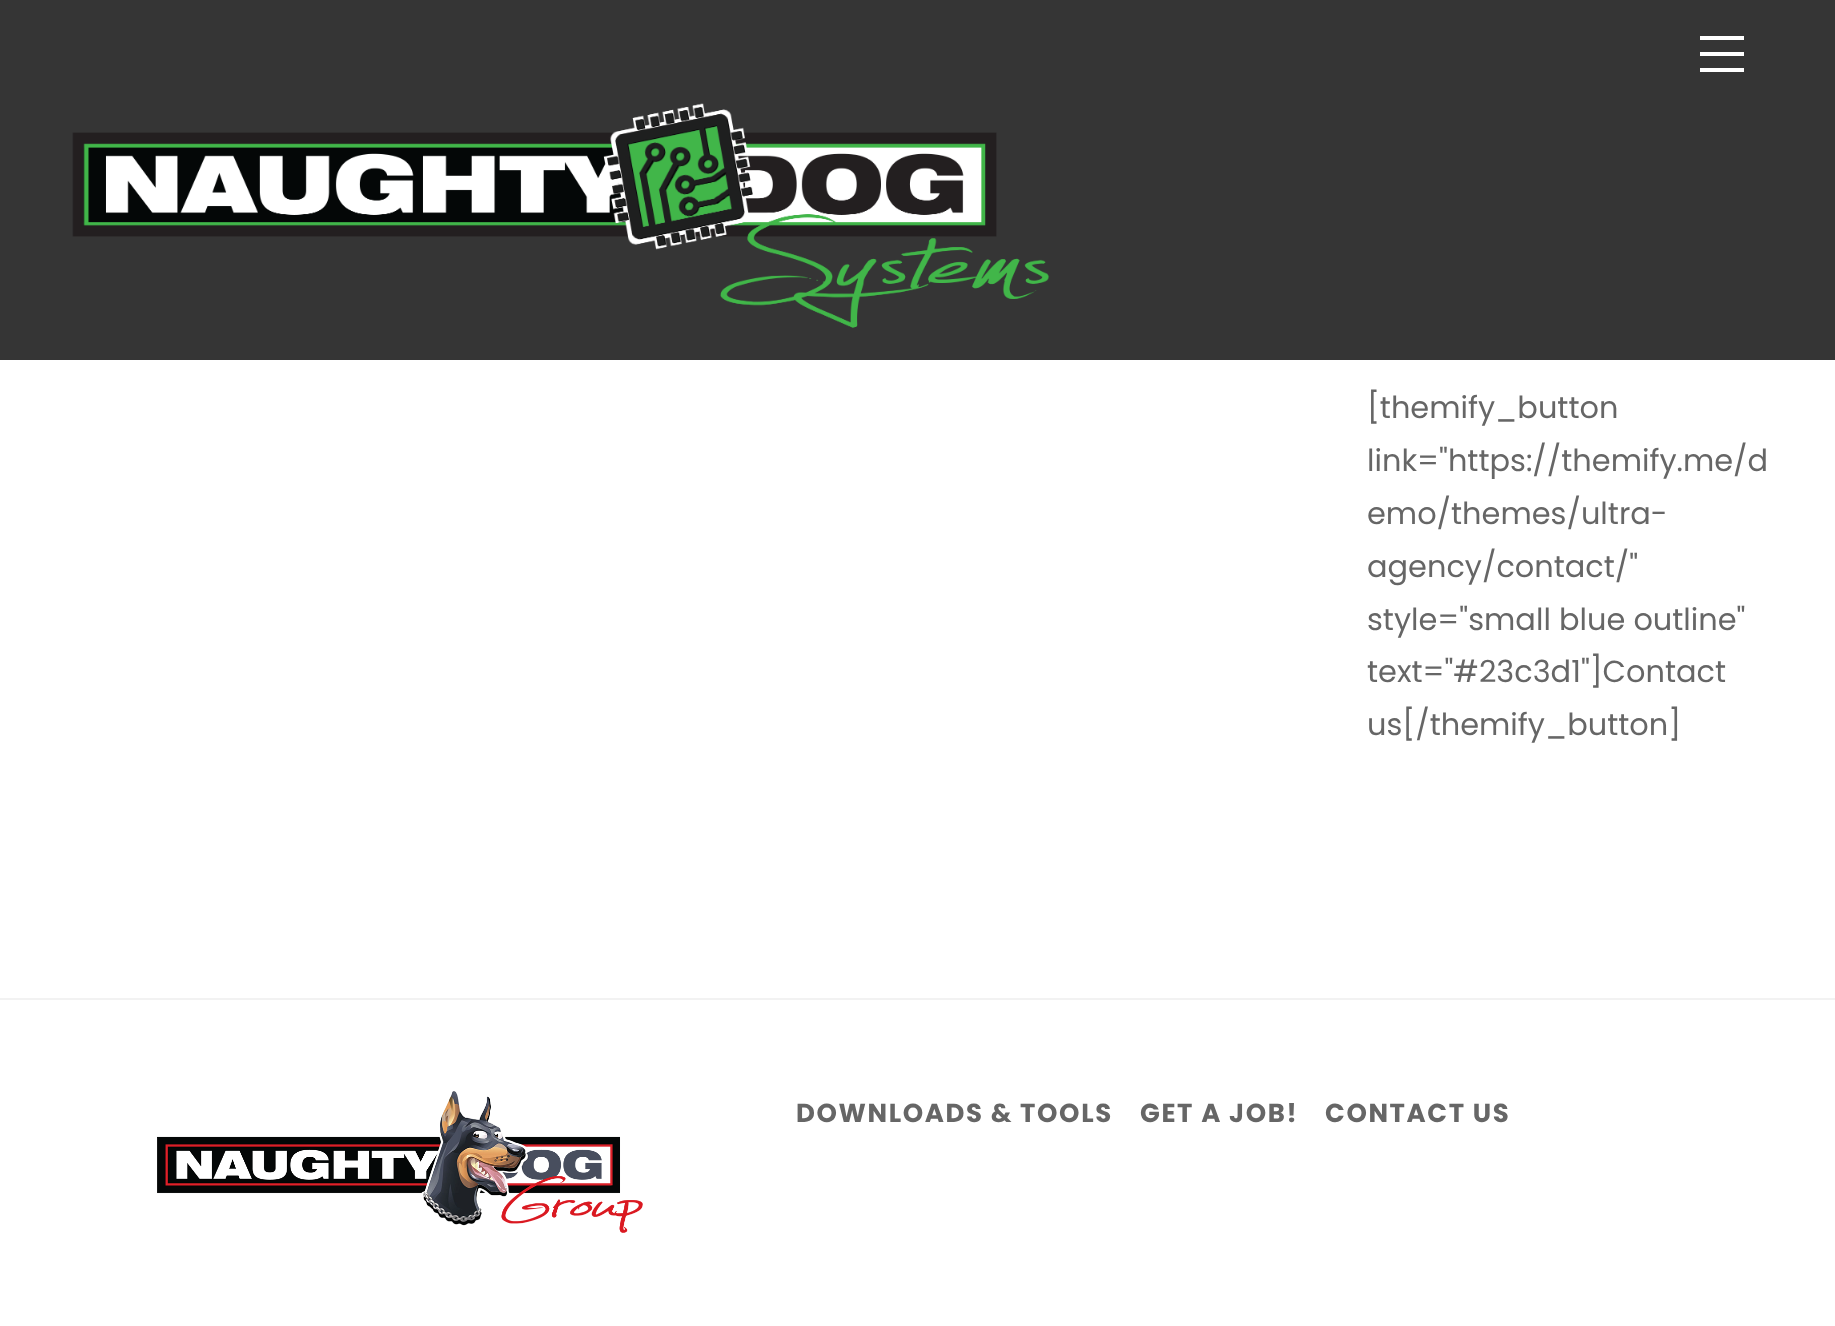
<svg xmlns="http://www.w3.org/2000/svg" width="1835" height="1326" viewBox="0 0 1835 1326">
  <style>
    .t1 { font: 30.4px Poppins; fill: #666; }
    .t2 { font: bold 26px Poppins; letter-spacing: 1.6px; fill: #666; }
  </style>
  <rect width="100%" height="100%" fill="#fff"/>
  <rect x="0" y="0" width="1835" height="360" fill="#353535"/>
  <rect x="1700" y="68" width="44" height="4" fill="#fff"/>
  <rect x="1700" y="36" width="44" height="4" fill="#fff"/>
  <rect x="1700" y="52" width="44" height="4" fill="#fff"/>
  <image x="72" y="103" width="978" height="225" href="images/1.png"/>
  <text x="1367" y="418" class="t1">[themify_button</text>
  <text x="1367" y="471" class="t1">link="https://themify.me/d</text>
  <text x="1367" y="524" class="t1">emo/themes/ultra-</text>
  <text x="1367" y="577" class="t1">agency/contact/"</text>
  <text x="1367" y="630" class="t1">style="small blue outline"</text>
  <text x="1367" y="682" class="t1">text="#23c3d1"]Contact</text>
  <text x="1367" y="735" class="t1">us[/themify_button]</text>
  <rect x="0" y="998" width="1835" height="2" fill="#f2f2f2"/>
  <image x="157" y="1091" width="486" height="142" href="images/2.png"/>
  <text x="796" y="1122" class="t2">DOWNLOADS &amp; TOOLS</text>
  <text x="1140" y="1122" class="t2">GET A JOB!</text>
  <text x="1325" y="1122" class="t2">CONTACT US</text>
</svg>
